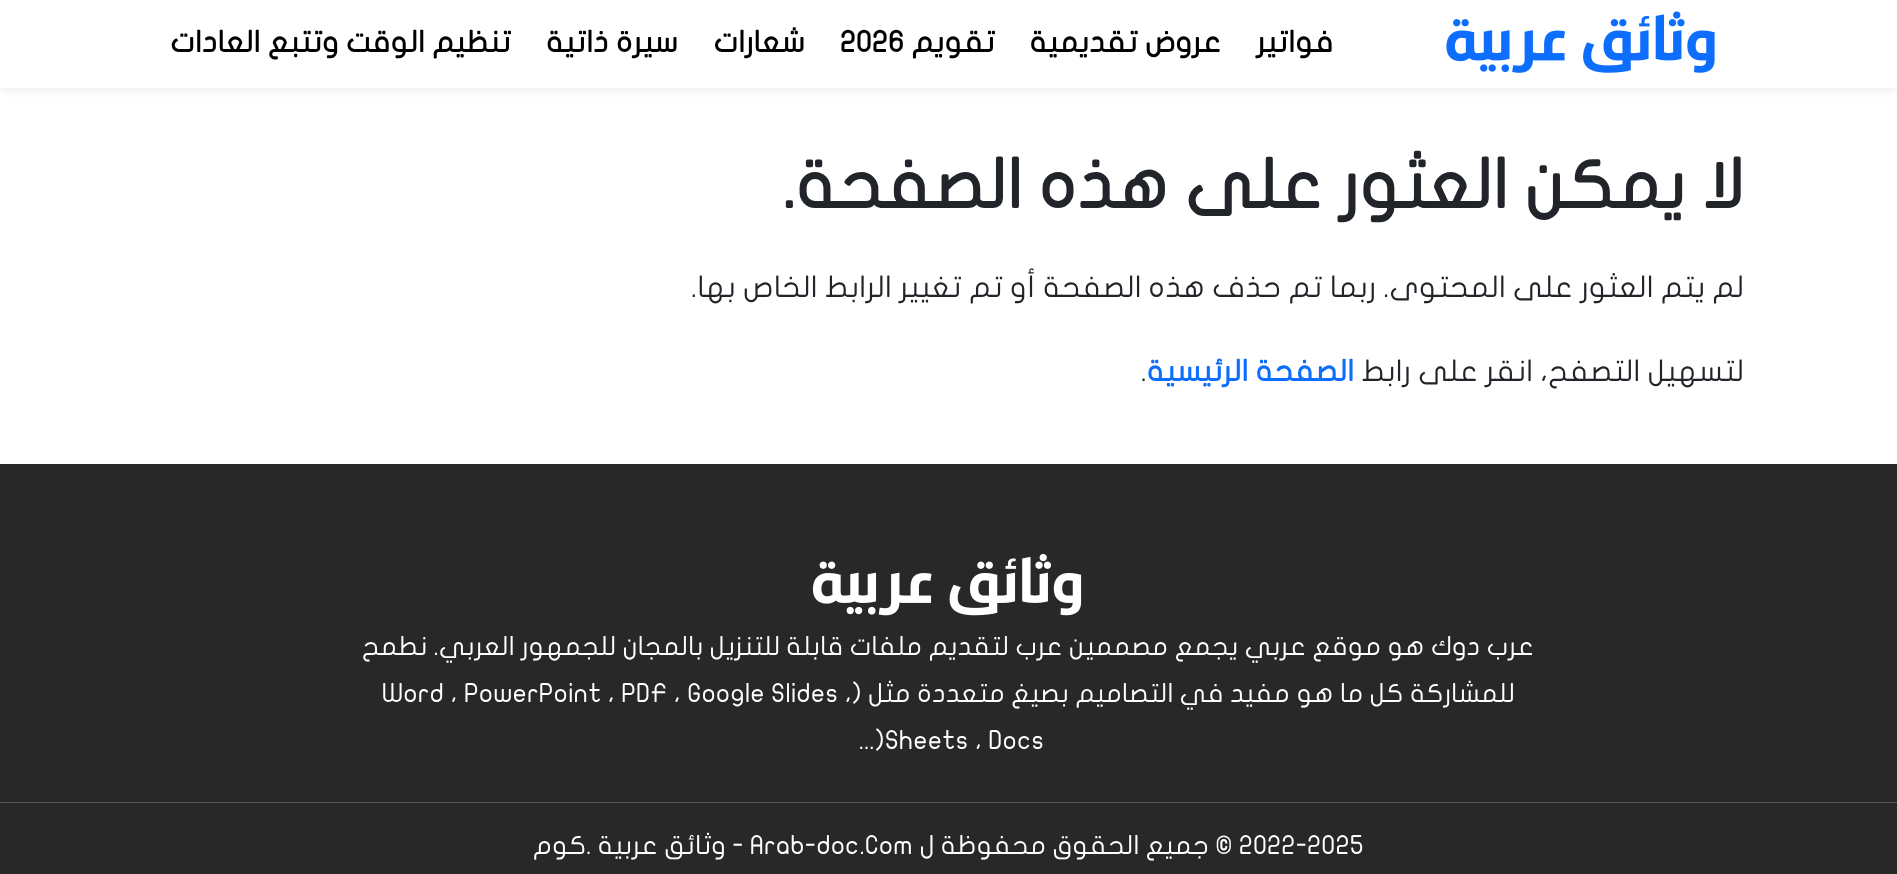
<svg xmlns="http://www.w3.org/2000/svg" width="1897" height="874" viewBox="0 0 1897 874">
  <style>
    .t1 { font: bold 29.75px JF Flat; direction: rtl; fill: #000; }
    .t2 { font: bold 29.75px JF Flat; fill: #000; }
    .t3 { font: bold 68.4px JF Flat; direction: rtl; fill: #212529; }
    .t4 { font: 29.75px JF Flat; direction: rtl; fill: #212529; }
    .t5 { font: bold 29.75px JF Flat; direction: rtl; fill: #0d6efd; }
    .t6 { font: 29.75px JF Flat; fill: #212529; }
    .t7 { font: 26.25px JF Flat; direction: rtl; fill: #fff; }
    .t8 { font: 26.25px JF Flat; fill: #fff; }
  </style>
  <rect width="100%" height="100%" fill="#fff"/>
  <rect x="0" y="0" width="1897" height="88" fill="#0000001a" filter="blur(6px)"/>
  <rect x="0" y="0" width="1897" height="88" fill="#fff"/>
  <image x="1446" y="11" width="269" height="62" href="images/1.png"/>
  <text x="1333" y="52" class="t1">فواتير</text>
  <text x="1221" y="52" class="t1">عروض تقديمية</text>
  <text x="995" y="52" class="t1">تقويم</text>
  <text x="840" y="52" class="t2">2026</text>
  <text x="805" y="52" class="t1">شعارات</text>
  <text x="678" y="52" class="t1">سيرة ذاتية</text>
  <text x="511" y="52" class="t1">تنظيم الوقت وتتبع العادات</text>
  <text x="1744" y="208" class="t3">لا يمكن العثور على هذه الصفحة.</text>
  <text x="1744" y="297" class="t4">لم يتم العثور على المحتوى. ربما تم حذف هذه الصفحة أو تم تغيير الرابط الخاص بها.</text>
  <text x="1744" y="381" class="t4">لتسهيل التصفح، انقر على رابط</text>
  <text x="1354" y="381" class="t5">الصفحة الرئيسية</text>
  <text x="1141" y="381" class="t6">.</text>
  <rect x="0" y="464" width="1897" height="338" fill="#282828"/>
  <rect x="0" y="802" width="1897" height="1" fill="#585858"/>
  <image x="812" y="553" width="270" height="63" href="images/2.png"/>
  <text x="1534" y="655" class="t7">عرب دوك هو موقع عربي يجمع مصممين عرب لتقديم ملفات قابلة للتنزيل بالمجان للجمهور العربي. نطمح</text>
  <text x="1515" y="702" class="t7">للمشاركة كل ما هو مفيد في التصاميم بصيغ متعددة مثل (</text>
  <text x="382" y="702" class="t8">Word ، PowerPoint ، PDF ، Google Slides ،</text>
  <text x="859" y="749" class="t8">...)Sheets ، Docs</text>
  <rect x="0" y="803" width="1897" height="71" fill="#282828"/>
  <text x="1239" y="854" class="t8">2022-2025</text>
  <text x="1233" y="854" class="t7">© جميع الحقوق محفوظة ل</text>
  <text x="750" y="854" class="t8">Arab-doc.Com</text>
  <text x="744" y="854" class="t7">- وثائق عربية .كوم</text>
</svg>
